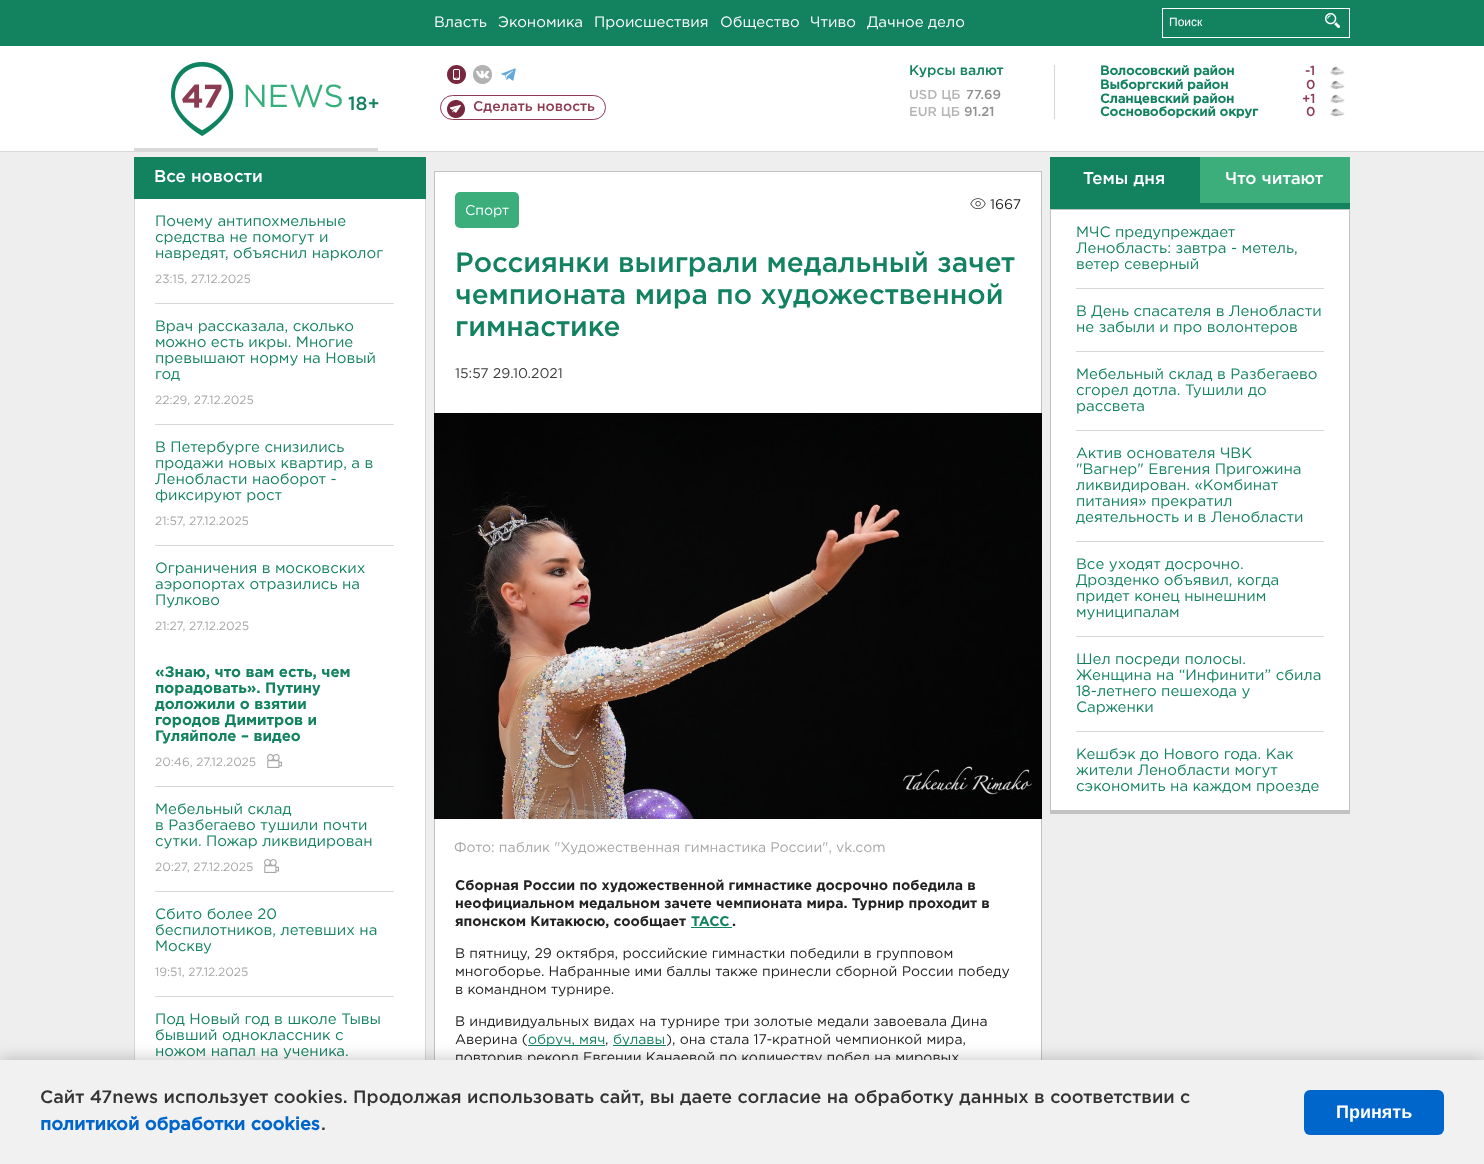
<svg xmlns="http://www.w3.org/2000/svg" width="1484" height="1164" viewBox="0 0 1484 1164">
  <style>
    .t1 { font: 15px Gotham; fill: #fff; }
    .t2 { font: 12px Liberation Sans; fill: #fff; }
    .t3 { font: 500 14px Gotham; fill: #13825f; }
    .t4 { font: 500 13px Gotham; fill: #b5b5b5; }
    .t5 { font: 500 13px Gotham; fill: #919191; }
    .t6 { font: bold 13px Gotham; fill: #13825f; }
    .t7 { font: 500 13px Gotham; fill: #8c3b52; }
    .t8 { font: 500 19px Gotham; fill: #13825f; }
    .t9 { font: 500 14px Gotham; fill: #8c3b52; }
    .t10 { font: 500 17px Gotham; fill: #fff; }
    .t11 { font: 15px Gotham; fill: #13825f; }
    .t12 { font: 12px Gotham; fill: #a7a7a7; }
    .t13 { font: bold 15px 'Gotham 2'; fill: #13825f; }
    .t14 { font: 14px Gotham; fill: #fff; }
    .t15 { font: 14px Gotham; fill: #222; }
    .t16 { font: 500 28px Gotham; fill: #13825f; }
    .t17 { font: 14px Gotham; fill: #3c3c3c; }
    .t18 { font: 14px Gotham; fill: #a7a7a7; }
    .t19 { font: bold 14px 'Gotham 2'; fill: #222; }
    .t20 { font: bold 14px 'Gotham 2'; fill: #13825f; }
    .t21 { font: 14px Gotham; fill: #13825f; }
    .t22 { font: 500 18px Gotham; fill: #333; }
    .t23 { font: bold 18px Gotham; fill: #06c; }
    .t24 { font: bold 18px Liberation Sans; fill: #fff; }
  </style>
  <rect width="100%" height="100%" fill="#eee"/>
  <rect x="0" y="0" width="1484" height="46" fill="#13825f"/>
  <text x="434" y="27" class="t1">Власть</text>
  <text x="498" y="27" class="t1">Экономика</text>
  <text x="594" y="27" class="t1">Происшествия</text>
  <text x="720" y="27" class="t1">Общество</text>
  <text x="810" y="27" class="t1">Чтиво</text>
  <text x="867" y="27" class="t1">Дачное дело</text>
  <rect x="1162.5" y="8.5" width="187" height="29" fill="none" stroke="#fff"/>
  <text x="1169" y="26" class="t2">Поиск</text>
  <image x="1325" y="13" width="15" height="15" href="images/1.png"/>
  <rect x="0" y="46" width="1484" height="105" fill="#fff"/>
  <rect x="0" y="151" width="1484" height="1" fill="#dad9d9"/>
  <rect x="134" y="148" width="244" height="3" fill="#dad9d9"/>
  <image x="171" y="62" width="171" height="74" href="images/2.png"/>
  <text x="909" y="75" class="t3">Курсы валют</text>
  <text x="909" y="99" class="t4">USD ЦБ</text>
  <text x="966" y="99" class="t5">77.69</text>
  <text x="909" y="116" class="t4">EUR ЦБ</text>
  <text x="964" y="116" class="t5">91.21</text>
  <rect x="1054" y="65" width="1" height="54" fill="#d6d6d6"/>
  <text x="1100" y="75" class="t6">Волосовский район</text>
  <text x="1305" y="75" class="t7">-1</text>
  <image x="1330" y="66" width="15" height="10" href="images/3.png"/>
  <text x="1100" y="89" class="t6">Выборгский район</text>
  <text x="1306" y="89" class="t7">0</text>
  <image x="1330" y="80" width="15" height="10" href="images/3.png"/>
  <text x="1100" y="103" class="t6">Сланцевский район</text>
  <text x="1302" y="103" class="t7">+1</text>
  <image x="1330" y="94" width="15" height="10" href="images/3.png"/>
  <text x="1100" y="116" class="t6">Сосновоборский округ</text>
  <text x="1306" y="116" class="t7">0</text>
  <image x="1330" y="108" width="15" height="9" href="images/4.png"/>
  <text x="348" y="110" class="t8">18+</text>
  <image x="447" y="65" width="19" height="19" href="images/5.png"/>
  <image x="473" y="65" width="19" height="19" href="images/6.png"/>
  <image x="501" y="68" width="15" height="13" href="images/7.png"/>
  <image x="447" y="100" width="18" height="18" href="images/8.png"/>
  <rect x="440.5" y="95.5" width="165" height="24" rx="12" fill="none" stroke="#8c3b52"/>
  <text x="473" y="111" class="t9">Сделать новость</text>
  <rect x="134" y="157" width="292" height="42" fill="#13825f"/>
  <text x="154" y="182" class="t10">Все новости</text>
  <rect x="135" y="199" width="290" height="861" fill="#fff"/>
  <rect x="425" y="199" width="1" height="861" fill="#d6d6d6"/>
  <rect x="134" y="199" width="1" height="861" fill="#d6d6d6"/>
  <rect x="155" y="303" width="239" height="1" fill="#d8d8d8"/>
  <text x="155" y="226" class="t11">Почему антипохмельные</text>
  <text x="155" y="242" class="t11">средства не помогут и</text>
  <text x="155" y="258" class="t11">навредят, объяснил нарколог</text>
  <text x="155" y="283" class="t12">23:15, 27.12.2025</text>
  <rect x="155" y="424" width="239" height="1" fill="#d8d8d8"/>
  <text x="155" y="331" class="t11">Врач рассказала, сколько</text>
  <text x="155" y="347" class="t11">можно есть икры. Многие</text>
  <text x="155" y="363" class="t11">превышают норму на Новый</text>
  <text x="155" y="379" class="t11">год</text>
  <text x="155" y="404" class="t12">22:29, 27.12.2025</text>
  <rect x="155" y="545" width="239" height="1" fill="#d8d8d8"/>
  <text x="155" y="452" class="t11">В Петербурге снизились</text>
  <text x="155" y="468" class="t11">продажи новых квартир, а в</text>
  <text x="155" y="484" class="t11">Ленобласти наоборот -</text>
  <text x="155" y="500" class="t11">фиксируют рост</text>
  <text x="155" y="525" class="t12">21:57, 27.12.2025</text>
  <text x="155" y="573" class="t11">Ограничения в московских</text>
  <text x="155" y="589" class="t11">аэропортах отразились на</text>
  <text x="155" y="605" class="t11">Пулково</text>
  <text x="155" y="630" class="t12">21:27, 27.12.2025</text>
  <rect x="155" y="786" width="239" height="1" fill="#d8d8d8"/>
  <text x="155" y="677" class="t13">«Знаю, что вам есть, чем</text>
  <text x="155" y="693" class="t13">порадовать». Путину</text>
  <text x="155" y="709" class="t13">доложили о взятии</text>
  <text x="155" y="725" class="t13">городов Димитров и</text>
  <text x="155" y="741" class="t13">Гуляйполе – видео</text>
  <text x="155" y="766" class="t12">20:46, 27.12.2025</text>
  <image x="267" y="754" width="15" height="14" href="images/9.png"/>
  <rect x="155" y="891" width="239" height="1" fill="#d8d8d8"/>
  <text x="155" y="814" class="t11">Мебельный склад</text>
  <text x="155" y="830" class="t11">в Разбегаево тушили почти</text>
  <text x="155" y="846" class="t11">сутки. Пожар ликвидирован</text>
  <text x="155" y="871" class="t12">20:27, 27.12.2025</text>
  <image x="264" y="859" width="15" height="14" href="images/9.png"/>
  <rect x="155" y="996" width="239" height="1" fill="#d8d8d8"/>
  <text x="155" y="919" class="t11">Сбито более 20</text>
  <text x="155" y="935" class="t11">беспилотников, летевших на</text>
  <text x="155" y="951" class="t11">Москву</text>
  <text x="155" y="976" class="t12">19:51, 27.12.2025</text>
  <text x="155" y="1024" class="t11">Под Новый год в школе Тывы</text>
  <text x="155" y="1040" class="t11">бывший одноклассник с</text>
  <text x="155" y="1056" class="t11">ножом напал на ученика.</text>
  <rect x="435" y="172" width="606" height="888" fill="#fff"/>
  <rect x="434.5" y="171.5" width="607" height="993" fill="none" stroke="#c2c2c2"/>
  <rect x="455" y="192" width="64" height="36" rx="5" fill="#3bae7c"/>
  <text x="465" y="215" class="t14">Спорт</text>
  <image x="970" y="198" width="16" height="11" href="images/10.png"/>
  <text x="990" y="209" class="t15">1667</text>
  <text x="455" y="272" class="t16">Россиянки выиграли медальный зачет</text>
  <text x="455" y="304" class="t16">чемпионата мира по художественной</text>
  <text x="455" y="336" class="t16">гимнастике</text>
  <text x="455" y="378" class="t17">15:57 29.10.2021</text>
  <image x="434" y="413" width="608" height="406" href="images/11.png"/>
  <text x="454" y="852" class="t18">Фото: паблик "Художественная гимнастика России", vk.com</text>
  <text x="455" y="890" class="t19">Сборная России по художественной гимнастике досрочно победила в</text>
  <text x="455" y="908" class="t19">неофициальном медальном зачете чемпионата мира. Турнир проходит в</text>
  <text x="455" y="926" class="t19">японском Китакюсю, сообщает</text>
  <text x="691" y="926" class="t20">ТАСС</text>
  <text x="732" y="926" class="t19">.</text>
  <rect x="691" y="927" width="41" height="1" fill="#13825f"/>
  <text x="455" y="958" class="t15">В пятницу, 29 октября, российские гимнастки победили в групповом</text>
  <text x="455" y="976" class="t15">многоборье. Набранные ими баллы также принесли сборной России победу</text>
  <text x="455" y="994" class="t15">в командном турнире.</text>
  <text x="455" y="1026" class="t15">В индивидуальных видах на турнире три золотые медали завоевала Дина</text>
  <text x="455" y="1044" class="t15">Аверина (</text>
  <rect x="528" y="1045" width="77" height="1" fill="#13825f"/>
  <text x="528" y="1044" class="t21">обруч, мяч</text>
  <text x="605" y="1044" class="t15">,</text>
  <rect x="613" y="1045" width="53" height="1" fill="#13825f"/>
  <text x="613" y="1044" class="t21">булавы</text>
  <text x="666" y="1044" class="t15">), она стала 17-кратной чемпионкой мира,</text>
  <text x="455" y="1062" class="t15">повторив рекорд Евгении Канаевой по количеству побед на мировых</text>
  <rect x="1050" y="157" width="300" height="52" fill="#13825f"/>
  <text x="1083" y="184" class="t10">Темы дня</text>
  <rect x="1200" y="157" width="150" height="46" fill="#3bae7c"/>
  <text x="1225" y="184" class="t10">Что читают</text>
  <rect x="1051" y="210" width="298" height="600" fill="#fff"/>
  <rect x="1050" y="209" width="300" height="1" fill="#c2c2c2"/>
  <rect x="1349" y="209" width="1" height="605" fill="#c2c2c2"/>
  <rect x="1050" y="810" width="300" height="4" fill="#c2c2c2"/>
  <rect x="1050" y="209" width="1" height="605" fill="#c2c2c2"/>
  <rect x="1076" y="288" width="248" height="1" fill="#d8d8d8"/>
  <text x="1076" y="237" class="t11">МЧС предупреждает</text>
  <text x="1076" y="253" class="t11">Ленобласть: завтра - метель,</text>
  <text x="1076" y="269" class="t11">ветер северный</text>
  <rect x="1076" y="351" width="248" height="1" fill="#d8d8d8"/>
  <text x="1076" y="316" class="t11">В День спасателя в Ленобласти</text>
  <text x="1076" y="332" class="t11">не забыли и про волонтеров</text>
  <rect x="1076" y="430" width="248" height="1" fill="#d8d8d8"/>
  <text x="1076" y="379" class="t11">Мебельный склад в Разбегаево</text>
  <text x="1076" y="395" class="t11">сгорел дотла. Тушили до</text>
  <text x="1076" y="411" class="t11">рассвета</text>
  <rect x="1076" y="541" width="248" height="1" fill="#d8d8d8"/>
  <text x="1076" y="458" class="t11">Актив основателя ЧВК</text>
  <text x="1076" y="474" class="t11">"Вагнер" Евгения Пригожина</text>
  <text x="1076" y="490" class="t11">ликвидирован. «Комбинат</text>
  <text x="1076" y="506" class="t11">питания» прекратил</text>
  <text x="1076" y="522" class="t11">деятельность и в Ленобласти</text>
  <rect x="1076" y="636" width="248" height="1" fill="#d8d8d8"/>
  <text x="1076" y="569" class="t11">Все уходят досрочно.</text>
  <text x="1076" y="585" class="t11">Дрозденко объявил, когда</text>
  <text x="1076" y="601" class="t11">придет конец нынешним</text>
  <text x="1076" y="617" class="t11">муниципалам</text>
  <rect x="1076" y="731" width="248" height="1" fill="#d8d8d8"/>
  <text x="1076" y="664" class="t11">Шел посреди полосы.</text>
  <text x="1076" y="680" class="t11">Женщина на “Инфинити” сбила</text>
  <text x="1076" y="696" class="t11">18-летнего пешехода у</text>
  <text x="1076" y="712" class="t11">Сарженки</text>
  <text x="1076" y="759" class="t11">Кешбэк до Нового года. Как</text>
  <text x="1076" y="775" class="t11">жители Ленобласти могут</text>
  <text x="1076" y="791" class="t11">сэкономить на каждом проезде</text>
  <rect x="0" y="1058" width="1484" height="104" fill="#00000033" filter="blur(7.5px)"/>
  <rect x="0" y="1060" width="1484" height="104" fill="#f1f1f1"/>
  <text x="40" y="1103" class="t22">Сайт 47news использует cookies. Продолжая использовать сайт, вы даете согласие на обработку данных в соответствии с</text>
  <text x="40" y="1130" class="t23">политикой обработки cookies</text>
  <text x="321" y="1130" class="t22">.</text>
  <rect x="1304" y="1090" width="140" height="45" rx="6" fill="#06c"/>
  <text x="1336" y="1118" class="t24">Принять</text>
</svg>
